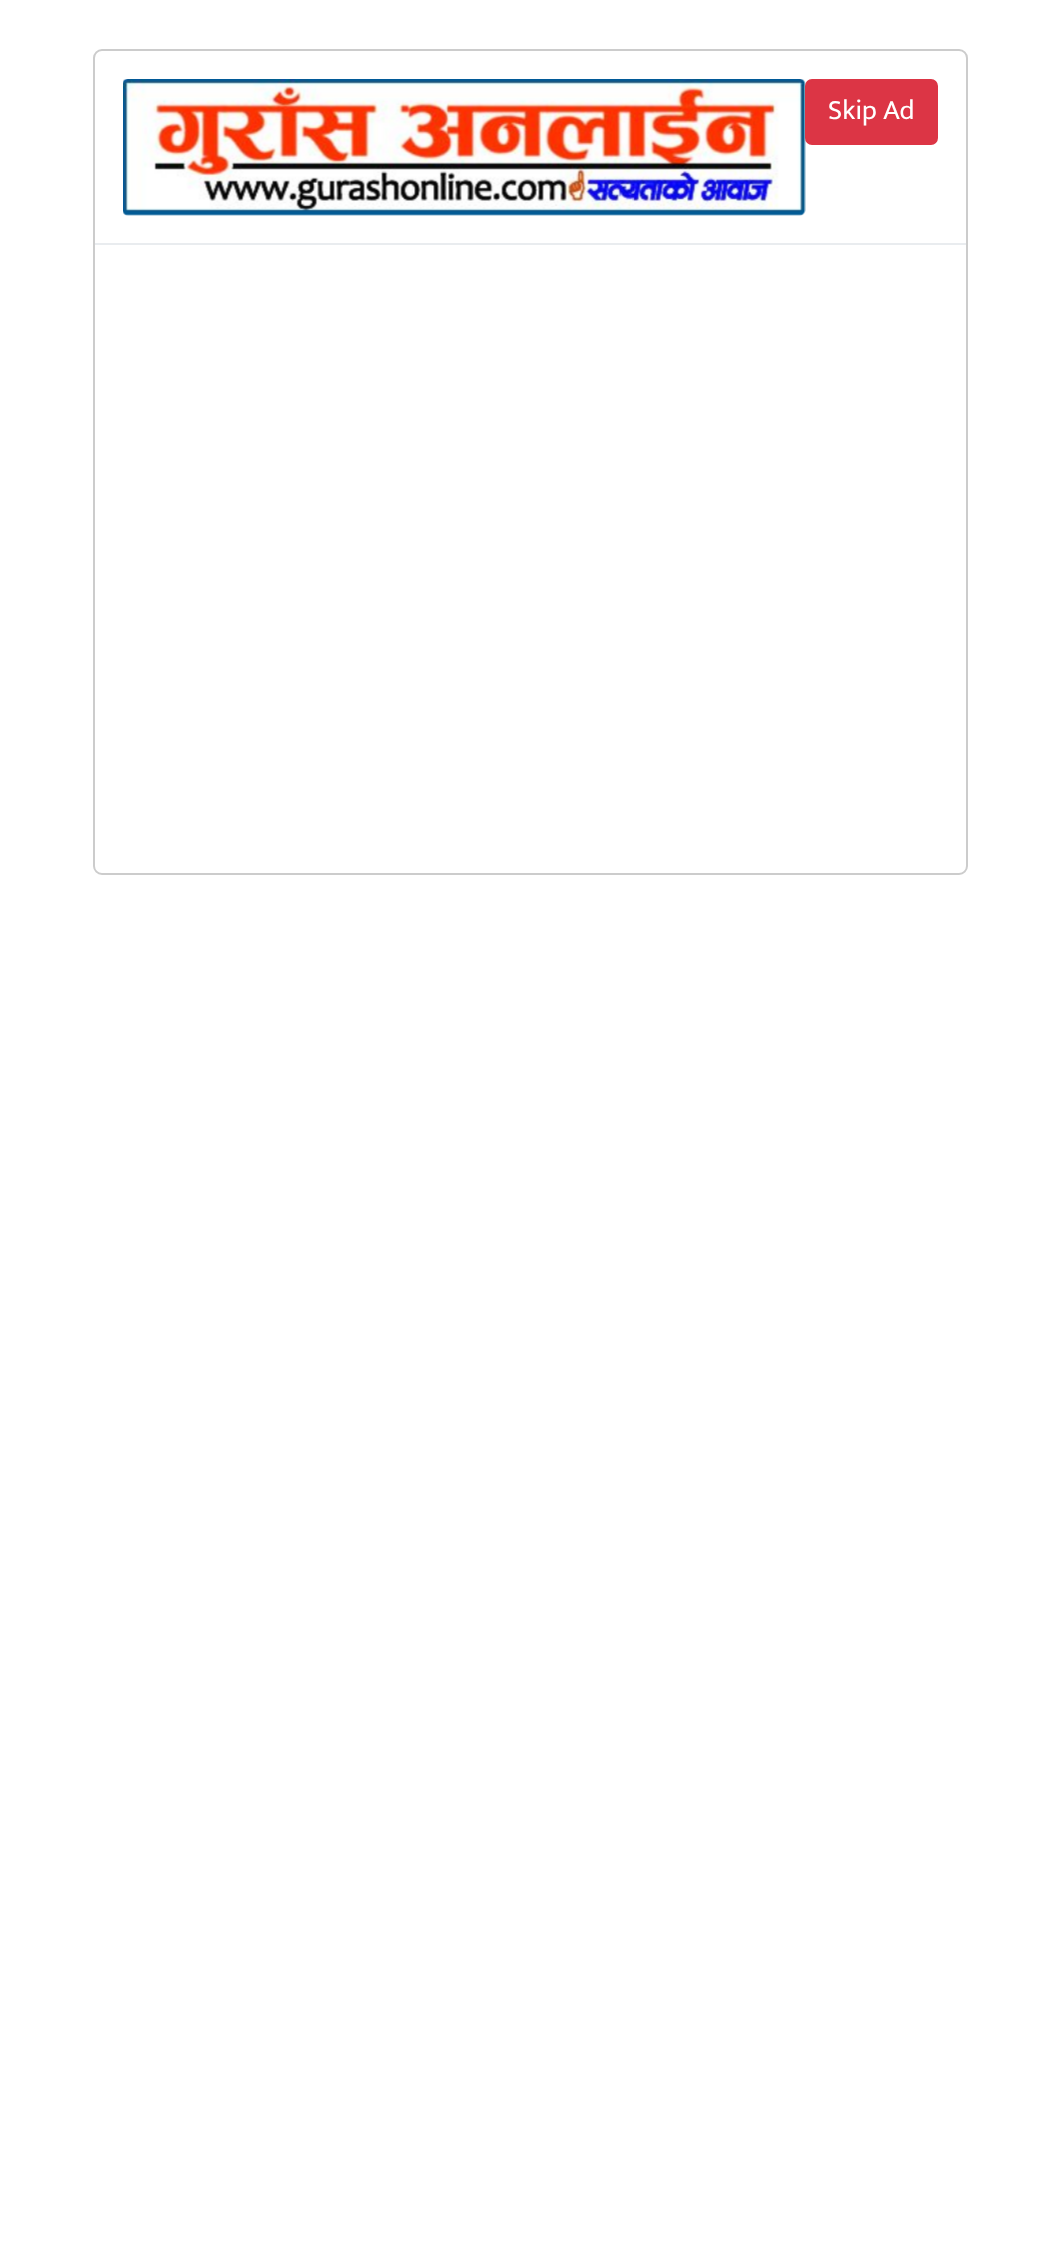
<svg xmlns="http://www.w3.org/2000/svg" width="1058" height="2242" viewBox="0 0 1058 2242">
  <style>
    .t1 { font: 28px Mukta; fill: #fff; }
  </style>
  <rect width="100%" height="100%" fill="#fff"/>
  <rect x="94" y="50" width="873" height="824" rx="8" fill="none" stroke="#ccc" stroke-width="2"/>
  <rect x="95" y="243" width="871" height="2" fill="#e9ecef"/>
  <image x="123" y="79" width="683" height="137" href="images/1.png"/>
  <rect x="806" y="80" width="131" height="64" rx="6" fill="#dc3545" stroke="#dc3545" stroke-width="2"/>
  <text x="828" y="119" class="t1">Skip Ad</text>
</svg>
